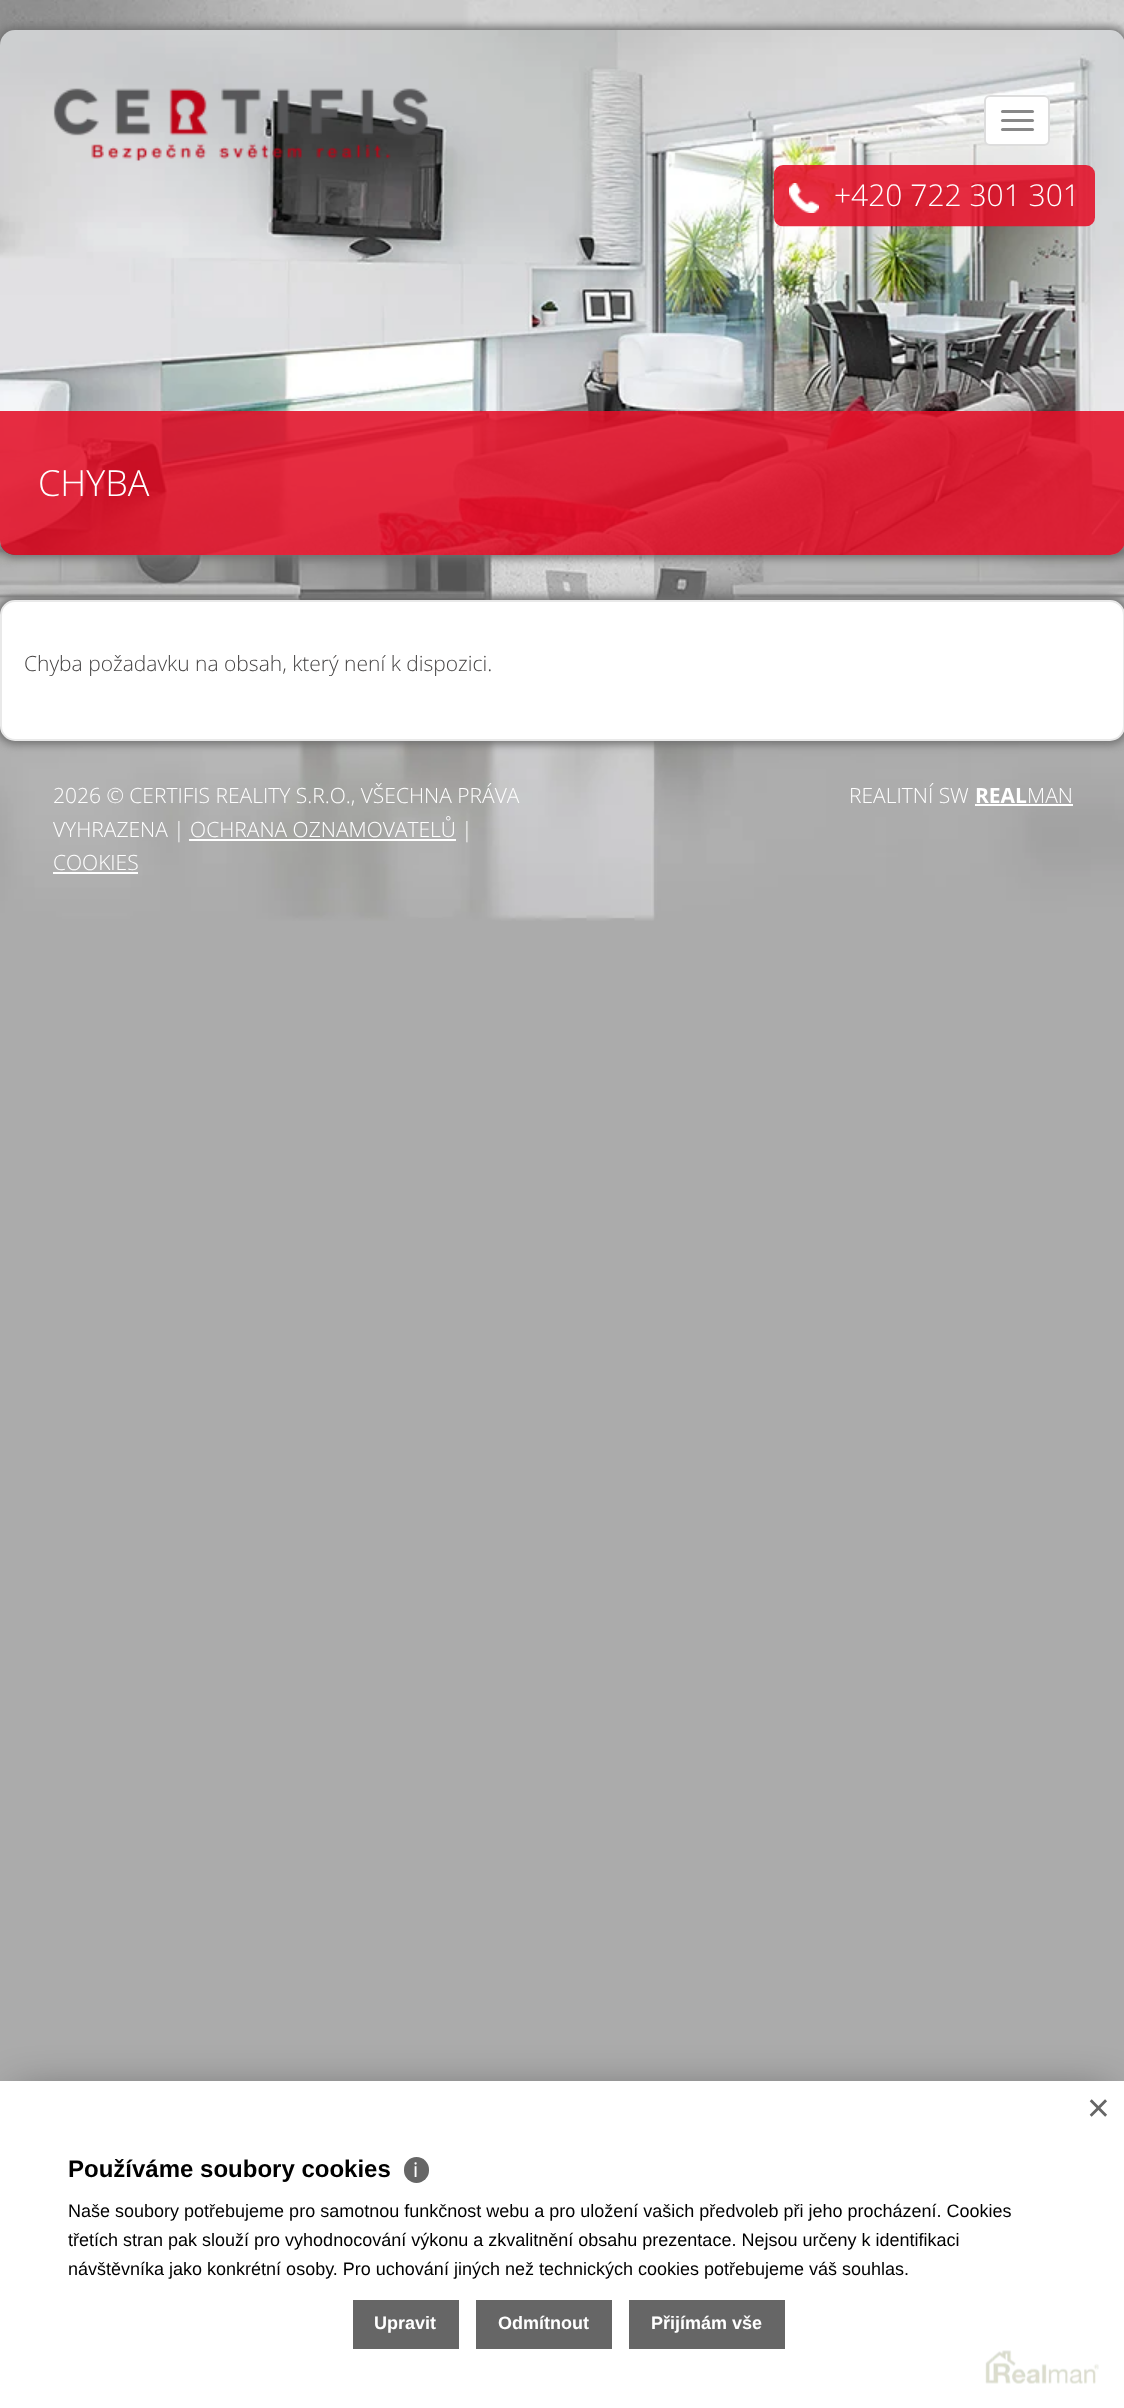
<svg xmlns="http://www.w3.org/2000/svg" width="1124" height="2408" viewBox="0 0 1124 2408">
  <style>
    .t1 { font: 300 30px Open Sans; fill: #fff; }
    .t2 { font: 300 36px Open Sans; fill: #fff; }
    .t3 { font: 300 21px Open Sans; fill: #464444; }
    .t4 { font: 300 21px Open Sans; fill: #fff; }
    .t5 { font: bold 21px Open Sans; fill: #fff; }
    .t6 { font: 39px Liberation Sans; fill: #666; }
    .t7 { font: bold 24px Liberation Sans; fill: #000; }
    .t8 { font: 20px Noto Sans; fill: #fff; }
    .t9 { font: 18px Liberation Sans; fill: #000; }
    .t10 { font: bold 18px Liberation Sans; fill: #fff; }
  </style>
  <rect width="100%" height="100%" fill="#ababab"/>
  <image x="0" y="0" width="1124" height="921" href="images/1.png"/>
  <rect x="-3" y="27" width="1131" height="531" rx="18" fill="#6f6f6f" filter="blur(4px)"/>
  <image x="0" y="30" width="1124" height="525" href="images/2.png"/>
  <image x="53" y="88" width="375" height="73" href="images/3.png"/>
  <rect x="985" y="96" width="64" height="49" rx="5" fill="#fff" stroke="#ddd" stroke-width="2"/>
  <rect x="1001" y="110" width="33" height="3" rx="1.5" fill="#888"/>
  <rect x="1001" y="119" width="33" height="3" rx="1.5" fill="#888"/>
  <rect x="1001" y="128" width="33" height="3" rx="1.5" fill="#888"/>
  <image x="774" y="165" width="321" height="62" href="images/4.png"/>
  <image x="789" y="183" width="30" height="30" href="images/5.png"/>
  <text x="834" y="206" class="t1">+420 722 301 301</text>
  <image x="0" y="411" width="1124" height="144" href="images/6.png"/>
  <text x="38" y="496" class="t2">CHYBA</text>
  <rect x="-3" y="597" width="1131" height="147" rx="18" fill="#6f6f6f" filter="blur(4px)"/>
  <rect x="1" y="601" width="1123" height="139" rx="14" fill="#fff" stroke="#e9e9e9" stroke-width="2"/>
  <text x="24" y="671" class="t3">Chyba požadavku na obsah, který není k dispozici.</text>
  <text x="53" y="803" class="t4">2026 © CERTIFIS REALITY S.R.O., VŠECHNA PRÁVA</text>
  <text x="53" y="837" class="t4">VYHRAZENA | OCHRANA OZNAMOVATELŮ |</text>
  <rect x="189" y="839" width="267" height="2" fill="#fff"/>
  <text x="53" y="870" class="t4">COOKIES</text>
  <rect x="53" y="872" width="85" height="2" fill="#fff"/>
  <text x="849" y="803" class="t4">REALITNÍ SW</text>
  <text x="975" y="803" class="t5">REAL</text>
  <rect x="975" y="804" width="98" height="2" fill="#fff"/>
  <text x="1027" y="803" class="t4">MAN</text>
  <rect x="15" y="2096" width="1095" height="298" fill="#00000080" filter="blur(22.5px)"/>
  <rect x="0" y="2081" width="1124" height="327" fill="#fff"/>
  <image x="985" y="2350" width="114" height="34" href="images/7.png"/>
  <text x="1087" y="2121" class="t6">×</text>
  <text x="68" y="2177" class="t7">Používáme soubory cookies</text>
  <rect x="404" y="2157" width="25" height="26" rx="12.5" fill="#666"/>
  <text x="413" y="2177" class="t8">ℹ</text>
  <text x="68" y="2217" class="t9">Naše soubory potřebujeme pro samotnou funkčnost webu a pro uložení vašich předvoleb při jeho procházení. Cookies</text>
  <text x="68" y="2246" class="t9">třetích stran pak slouží pro vyhodnocování výkonu a zkvalitnění obsahu prezentace. Nejsou určeny k identifikaci</text>
  <text x="68" y="2275" class="t9">návštěvníka jako konkrétní osoby. Pro uchování jiných než technických cookies potřebujeme váš souhlas.</text>
  <rect x="353" y="2300" width="106" height="49" fill="#666"/>
  <text x="374" y="2329" class="t10">Upravit</text>
  <rect x="476" y="2300" width="136" height="49" fill="#666"/>
  <text x="498" y="2329" class="t10">Odmítnout</text>
  <rect x="629" y="2300" width="156" height="49" fill="#666"/>
  <text x="651" y="2329" class="t10">Přijímám vše</text>
</svg>
